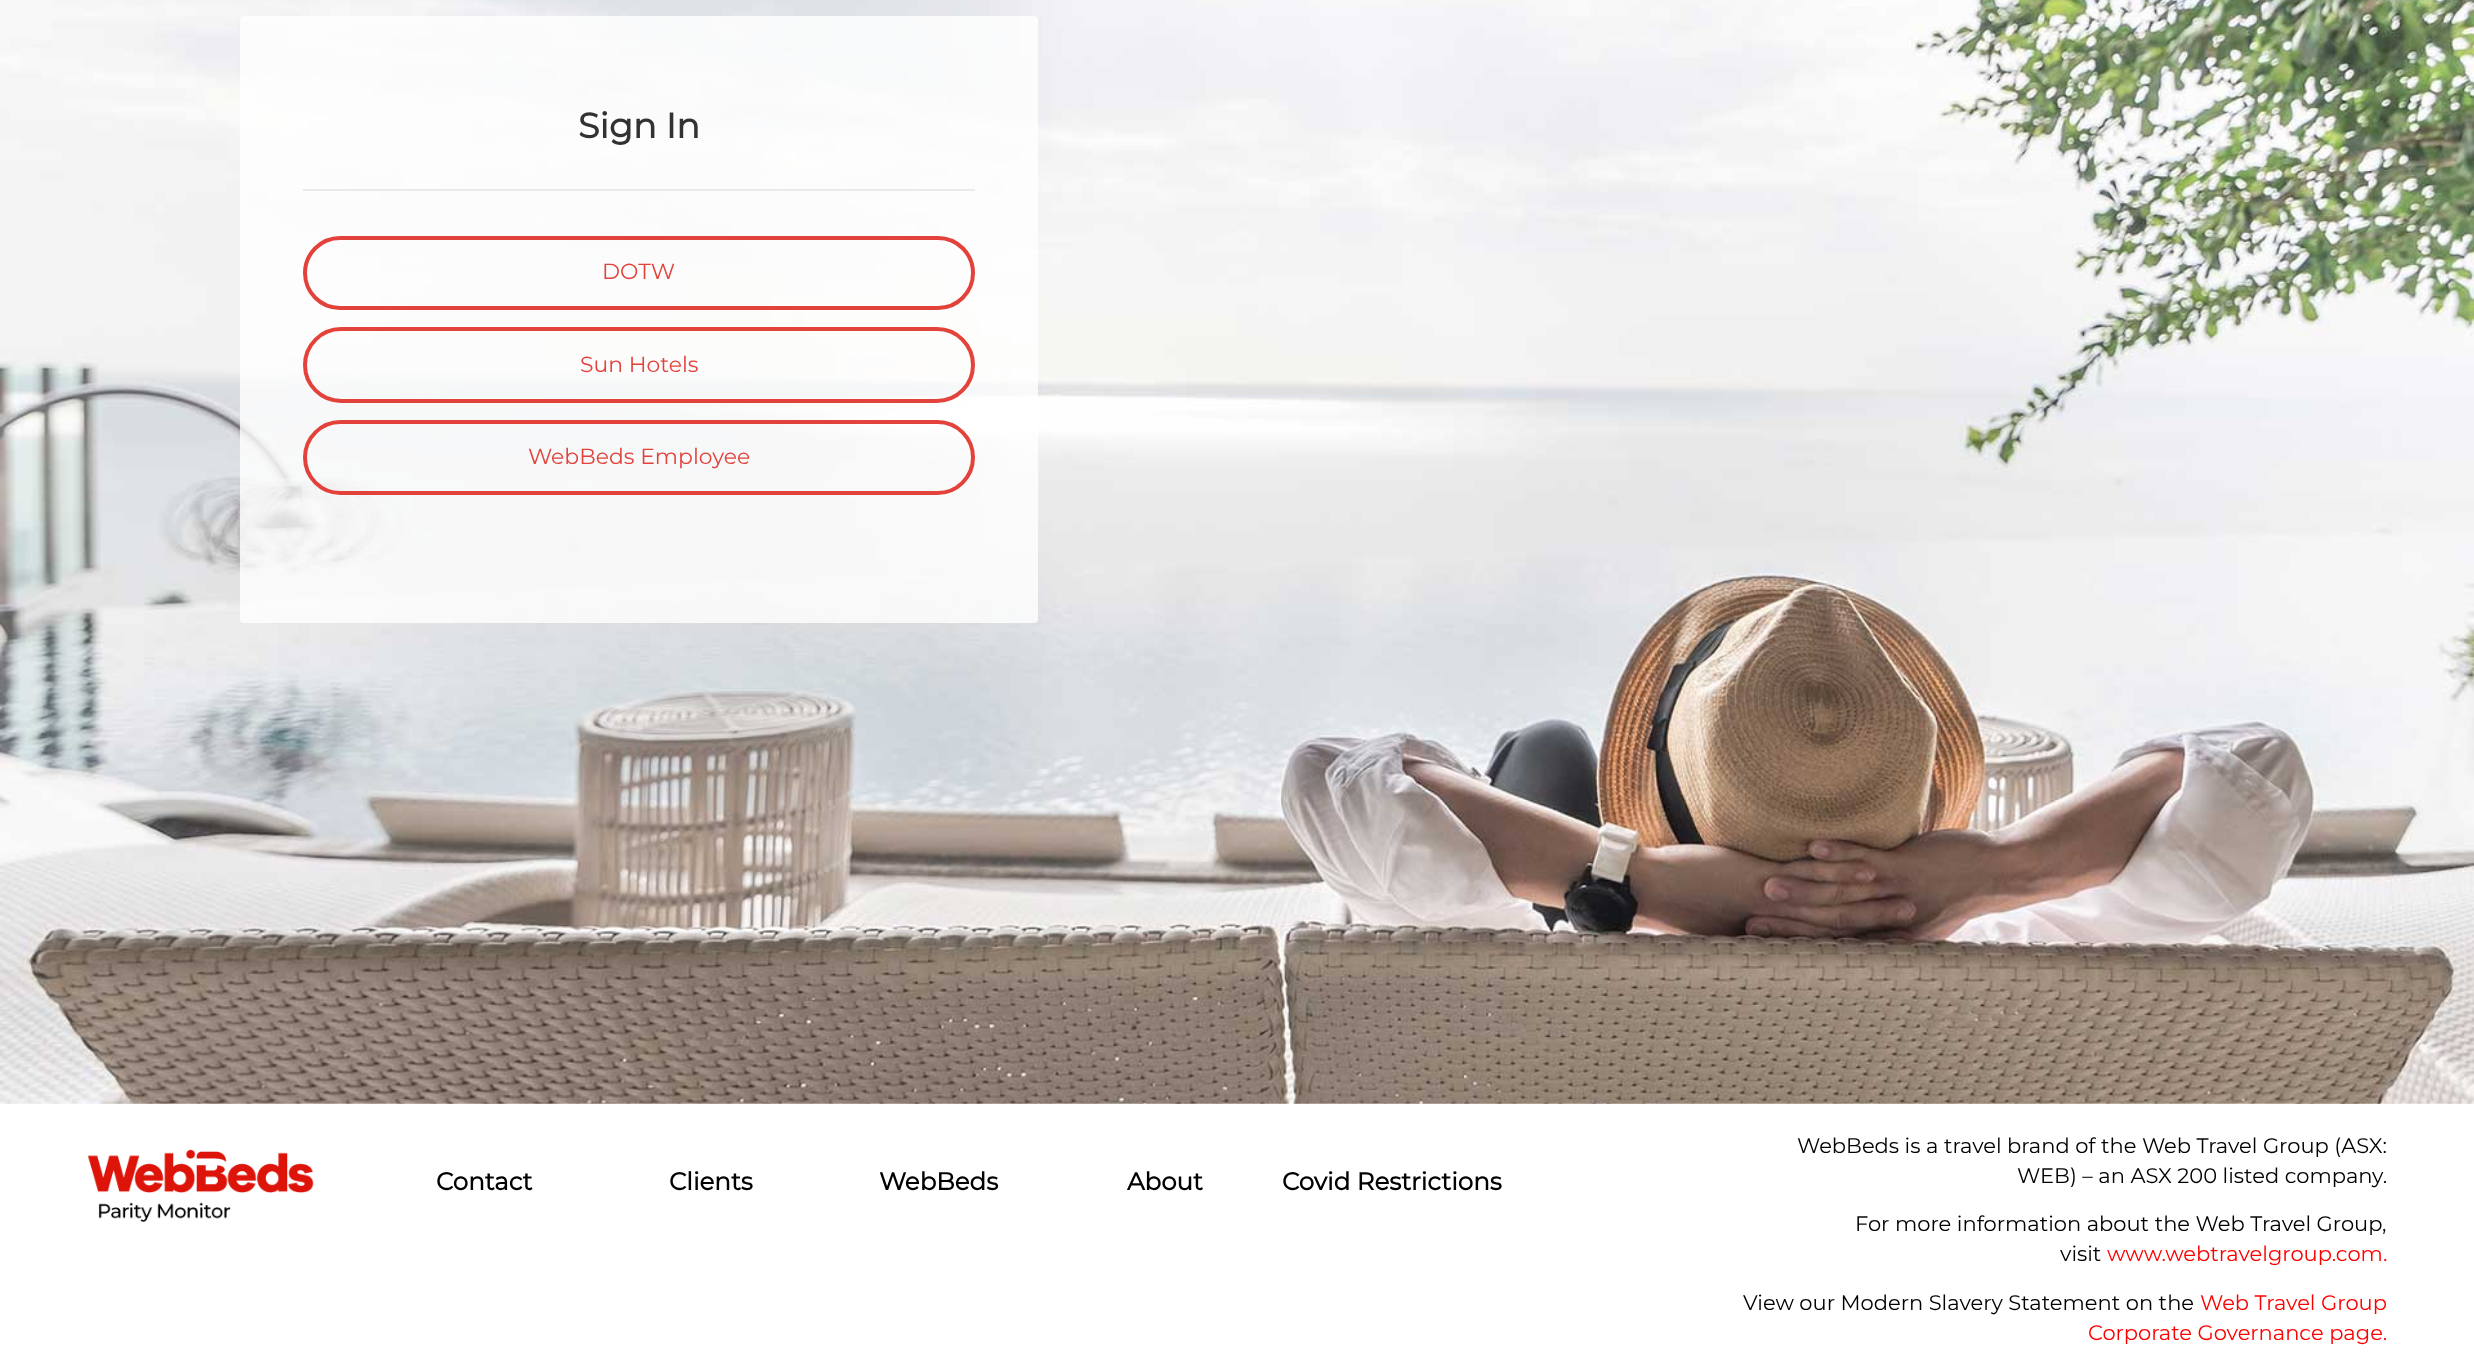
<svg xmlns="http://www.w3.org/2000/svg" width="2474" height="1358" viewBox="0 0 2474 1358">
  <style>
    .t1 { font: bold 35px Montserrat; fill: #323232; }
    .t2 { font: 100 21.9px Montserrat; fill: #e2423a; }
    .t3 { font: bold 24.5px Montserrat; fill: #000; }
    .t4 { font: 100 21px Montserrat; fill: #000; }
    .t5 { font: 100 21px Montserrat; fill: #f00; }
  </style>
  <rect width="100%" height="100%" fill="#fff"/>
  <image x="0" y="0" width="2474" height="1104" href="images/1.png"/>
  <rect x="240" y="16" width="798" height="607" rx="4" fill="#ffffffcc"/>
  <rect x="303" y="189" width="672" height="2" fill="#eaeaea"/>
  <text x="578" y="138" class="t1">Sign In</text>
  <rect x="305" y="238" width="668" height="70" rx="35" fill="none" stroke="#e2423a" stroke-width="4"/>
  <text x="602" y="279" class="t2">DOTW</text>
  <rect x="305" y="329" width="668" height="72" rx="36" fill="none" stroke="#dc140acc" stroke-width="4"/>
  <text x="580" y="372" class="t2">Sun Hotels</text>
  <rect x="305" y="422" width="668" height="71" rx="35.5" fill="none" stroke="#dc140acc" stroke-width="4"/>
  <text x="528" y="464" class="t2">WebBeds Employee</text>
  <image x="87" y="1149" width="227" height="73" href="images/2.png"/>
  <text x="436" y="1190" class="t3">Contact</text>
  <text x="669" y="1190" class="t3">Clients</text>
  <text x="879" y="1190" class="t3">WebBeds</text>
  <text x="1127" y="1190" class="t3">About</text>
  <text x="1282" y="1190" class="t3">Covid Restrictions</text>
  <text x="1797" y="1153" class="t4">WebBeds is a travel brand of the Web Travel Group (ASX:</text>
  <text x="2017" y="1183" class="t4">WEB) – an ASX 200 listed company.</text>
  <text x="1855" y="1231" class="t4">For more information about the Web Travel Group,</text>
  <text x="2060" y="1261" class="t4">visit</text>
  <text x="2107" y="1261" class="t5">www.webtravelgroup.com.</text>
  <text x="1743" y="1310" class="t4">View our Modern Slavery Statement on the</text>
  <text x="2200" y="1310" class="t5">Web Travel Group</text>
  <text x="2088" y="1340" class="t5">Corporate Governance page.</text>
</svg>
